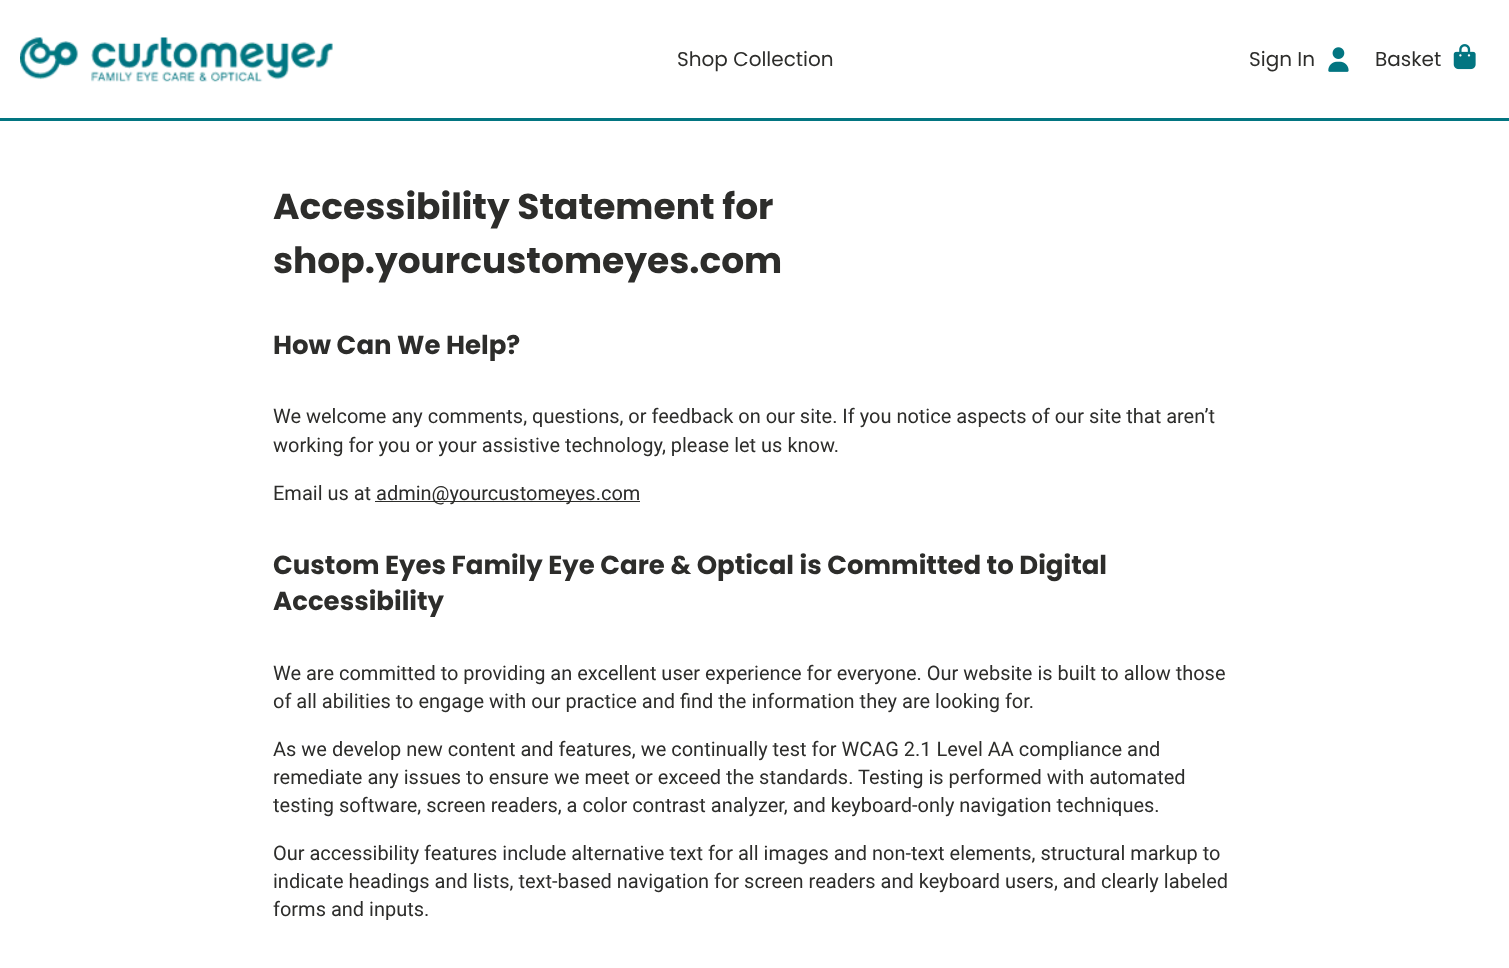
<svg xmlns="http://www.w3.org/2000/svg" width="1509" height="968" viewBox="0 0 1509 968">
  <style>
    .t1 { font: 20px Poppins; fill: #2d2d2b; }
    .t2 { font: bold 36px Poppins; fill: #2d2d2b; }
    .t3 { font: bold 26px Poppins; fill: #2d2d2b; }
    .t4 { font: 20px Roboto; fill: #2d2d2b; }
  </style>
  <rect width="100%" height="100%" fill="#fff"/>
  <rect x="0" y="118" width="1509" height="3" fill="#027581"/>
  <image x="20" y="37" width="313" height="45" href="images/1.png"/>
  <text x="677" y="66" class="t1">Shop Collection</text>
  <text x="1249" y="66" class="t1">Sign In</text>
  <image x="1328" y="47" width="21" height="25" href="images/2.png"/>
  <text x="1375" y="66" class="t1">Basket</text>
  <image x="1453" y="44" width="23" height="26" href="images/3.png"/>
  <text x="273" y="219" class="t2">Accessibility Statement for</text>
  <text x="273" y="273" class="t2">shop.yourcustomeyes.com</text>
  <text x="273" y="354" class="t3">How Can We Help?</text>
  <text x="273" y="423" class="t4">We welcome any comments, questions, or feedback on our site. If you notice aspects of our site that aren’t</text>
  <text x="273" y="452" class="t4">working for you or your assistive technology, please let us know.</text>
  <text x="273" y="500" class="t4">Email us at</text>
  <rect x="375" y="501" width="265" height="1" fill="#2d2d2b"/>
  <text x="376" y="500" class="t4">admin@yourcustomeyes.com</text>
  <text x="273" y="574" class="t3">Custom Eyes Family Eye Care &amp; Optical is Committed to Digital</text>
  <text x="273" y="610" class="t3">Accessibility</text>
  <text x="273" y="680" class="t4">We are committed to providing an excellent user experience for everyone. Our website is built to allow those</text>
  <text x="273" y="708" class="t4">of all abilities to engage with our practice and find the information they are looking for.</text>
  <text x="273" y="756" class="t4">As we develop new content and features, we continually test for WCAG 2.1 Level AA compliance and</text>
  <text x="273" y="784" class="t4">remediate any issues to ensure we meet or exceed the standards. Testing is performed with automated</text>
  <text x="273" y="812" class="t4">testing software, screen readers, a color contrast analyzer, and keyboard-only navigation techniques.</text>
  <text x="273" y="860" class="t4">Our accessibility features include alternative text for all images and non-text elements, structural markup to</text>
  <text x="273" y="888" class="t4">indicate headings and lists, text-based navigation for screen readers and keyboard users, and clearly labeled</text>
  <text x="273" y="916" class="t4">forms and inputs.</text>
</svg>
